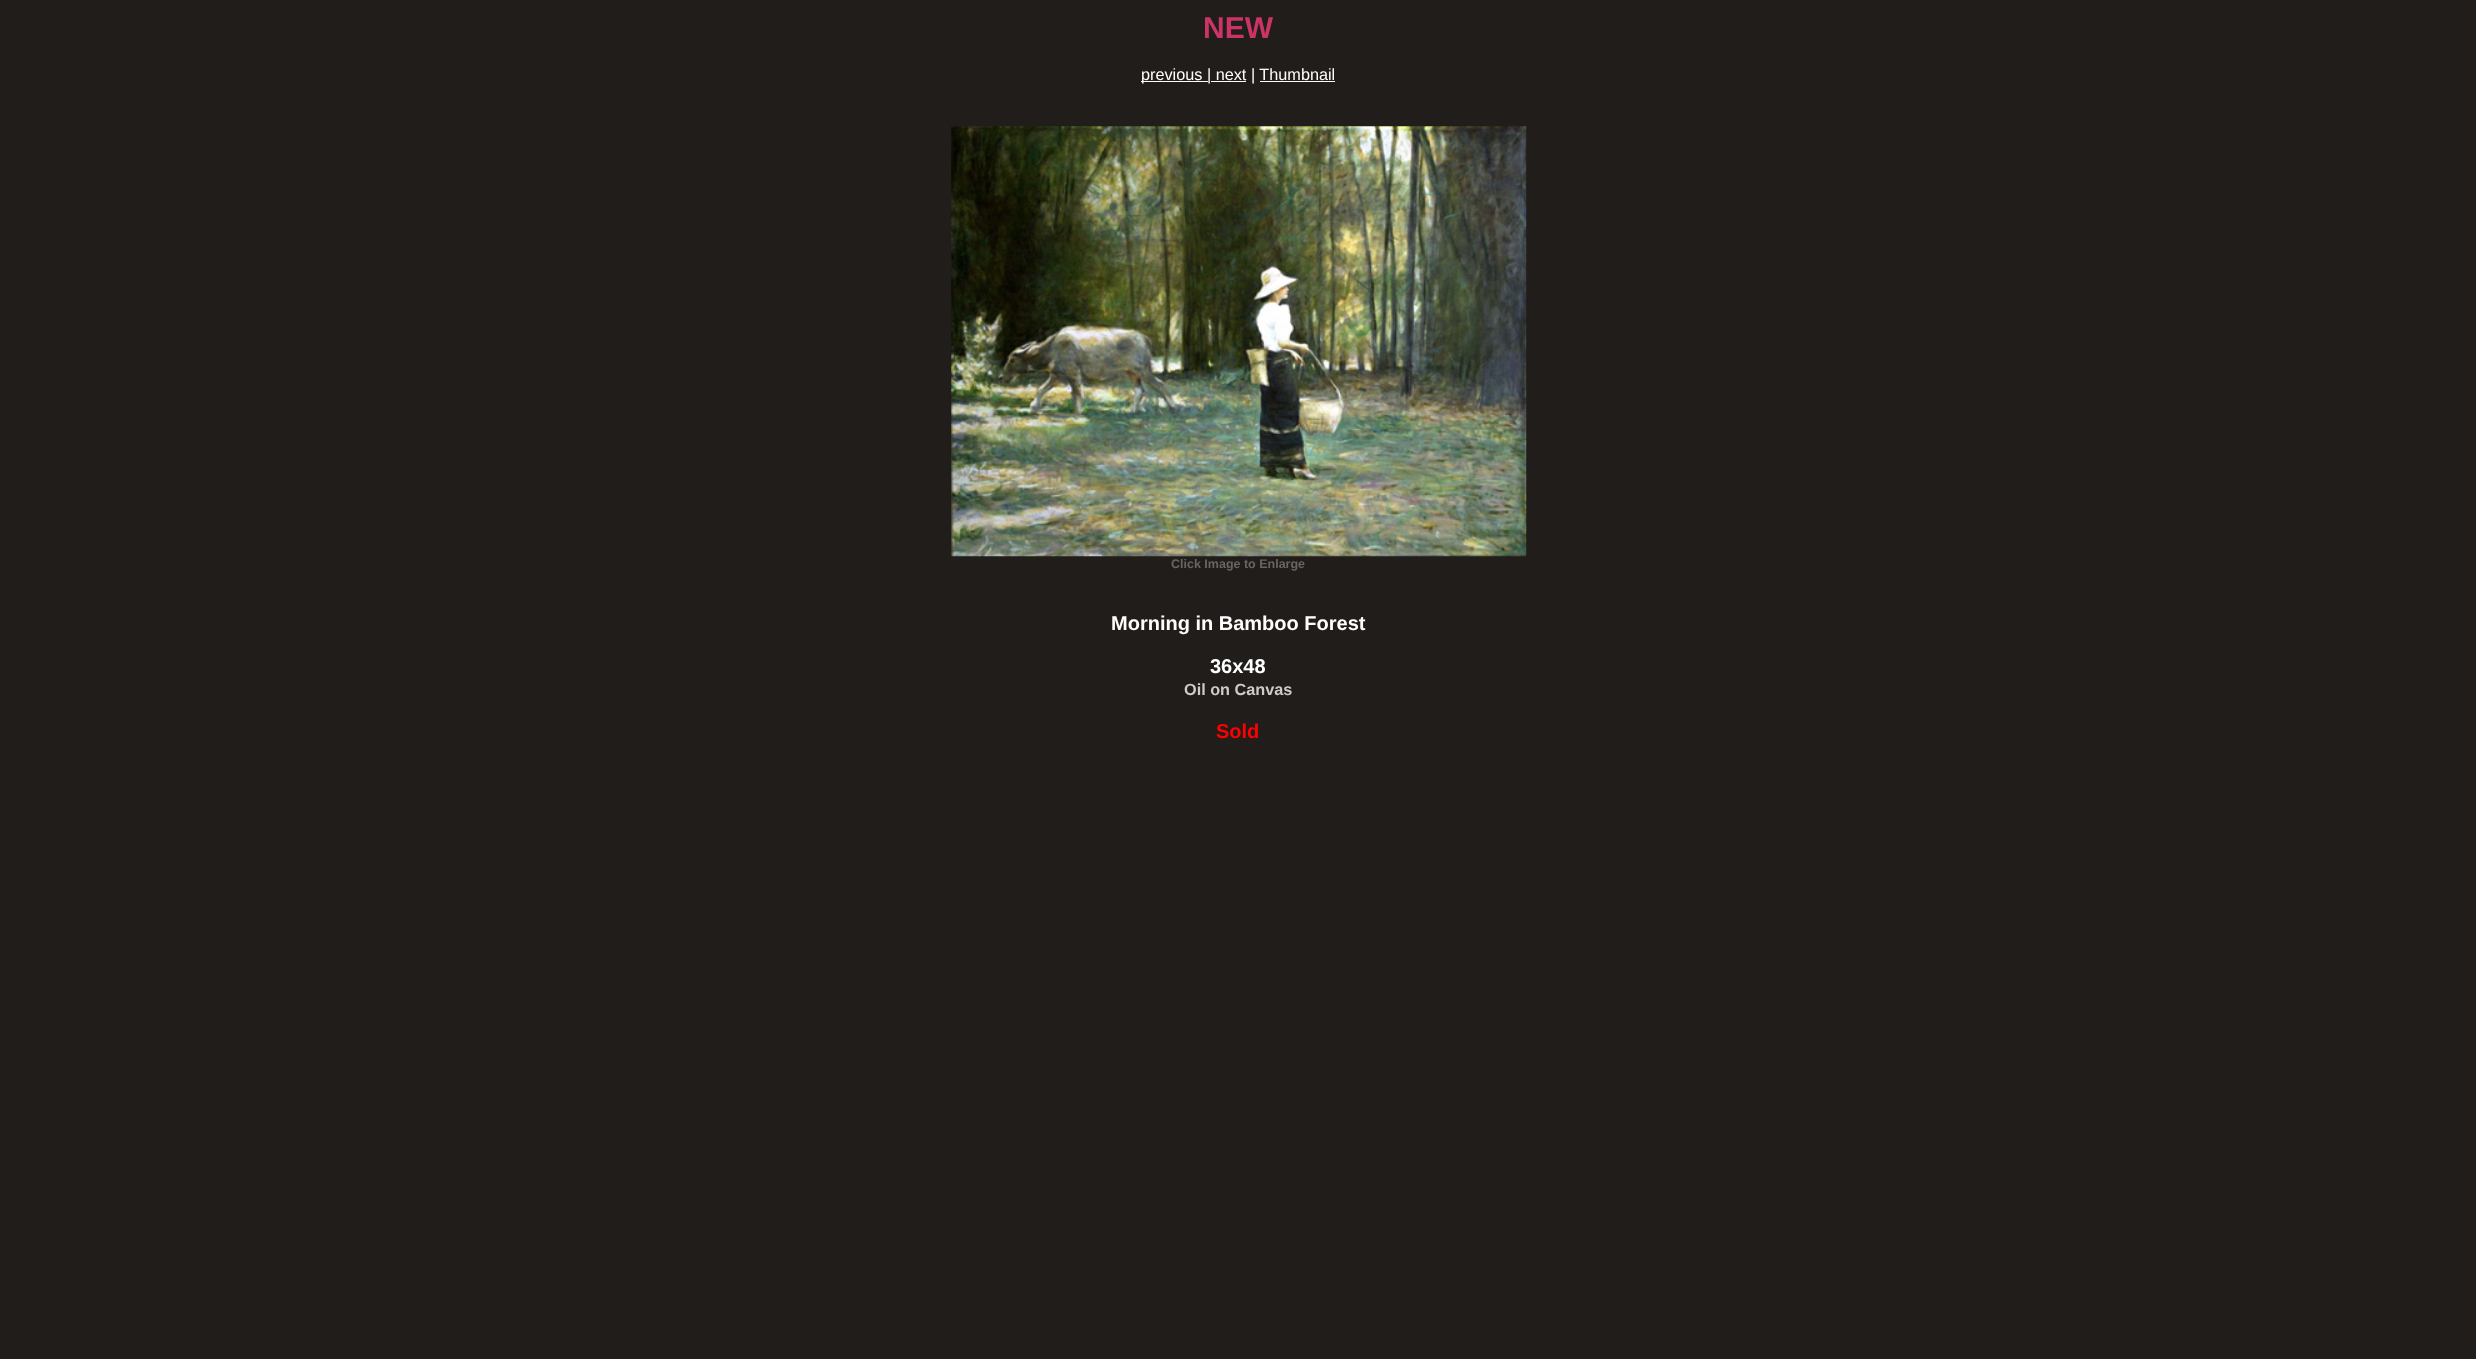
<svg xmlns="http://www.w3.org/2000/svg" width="2476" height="1359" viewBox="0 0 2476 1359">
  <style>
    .t1 { font: bold 30px Liberation Sans; fill: #c36; }
    .t2 { font: 16.25px Liberation Sans; fill: #fff; }
    .t3 { font: bold 12.5px Liberation Sans; fill: #666; }
    .t4 { font: bold 20px Liberation Sans; fill: #fff; }
    .t5 { font: bold 16.25px Liberation Sans; fill: #ccc; }
    .t6 { font: bold 20px Liberation Sans; fill: #f00; }
  </style>
  <rect width="100%" height="100%" fill="#211d1a"/>
  <text x="1203" y="38" class="t1">NEW</text>
  <rect x="1141" y="81" width="67" height="1" fill="#fff"/>
  <text x="1141" y="80" class="t2">previous | next | Thumbnail</text>
  <rect x="1211" y="81" width="35" height="1" fill="#fff"/>
  <rect x="1260" y="81" width="75" height="1" fill="#fff"/>
  <image x="951" y="126" width="576" height="431" href="images/1.png"/>
  <text x="1171" y="568" class="t3">Click Image to Enlarge</text>
  <text x="1111" y="630" class="t4">Morning in Bamboo Forest</text>
  <text x="1210" y="673" class="t4">36x48</text>
  <text x="1184" y="695" class="t5">Oil on Canvas</text>
  <text x="1216" y="738" class="t6">Sold</text>
</svg>
